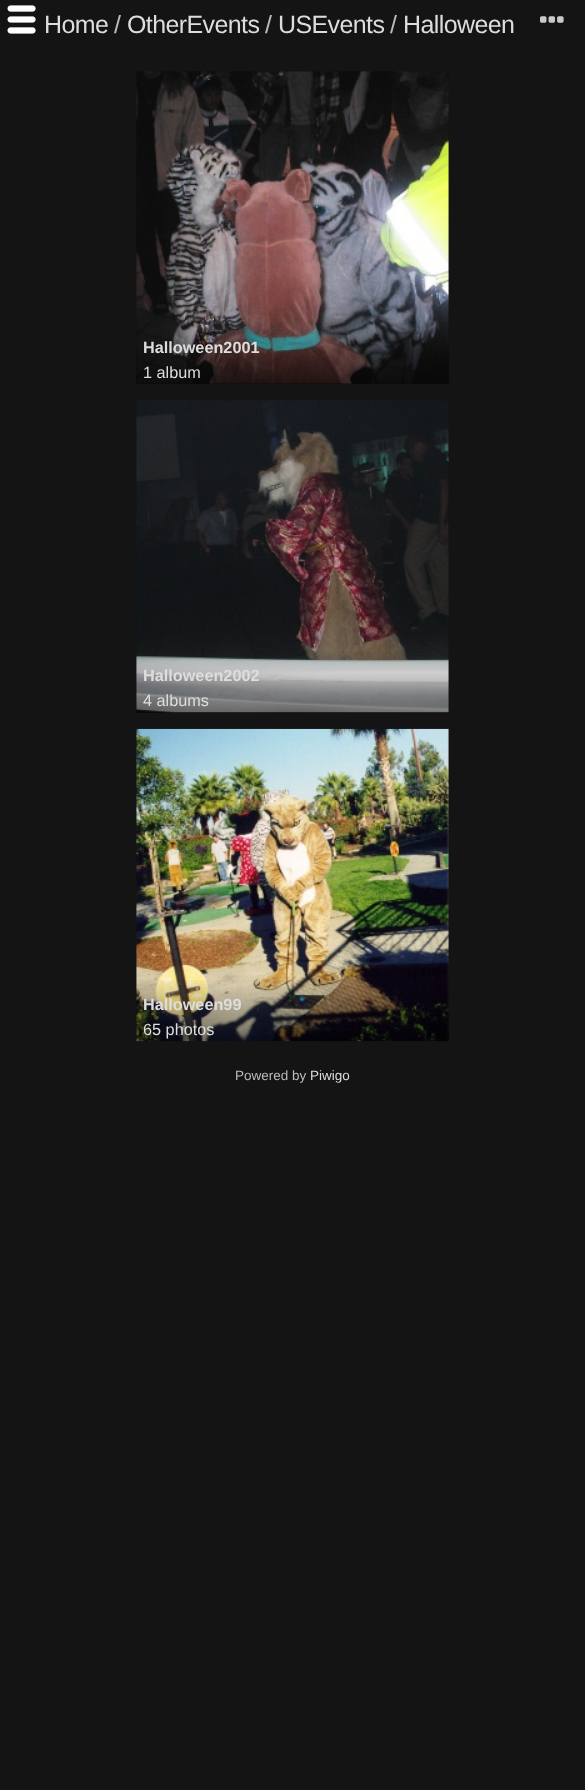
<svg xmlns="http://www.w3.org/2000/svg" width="585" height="1790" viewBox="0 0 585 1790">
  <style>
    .t1 { font: 25px Liberation Sans; letter-spacing: -0.6px; fill: #ddd; }
    .t2 { font: 25px Liberation Sans; letter-spacing: -0.6px; fill: #bbb; }
    .t3 { font: 30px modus; fill: #c9c9c9; }
    .t4 { font: bold 16.25px Liberation Sans; fill: #ddd; }
    .t5 { font: 16.25px Liberation Sans; fill: #ddd; }
    .t6 { font: 13.5px Liberation Sans; fill: #bbb; }
    .t7 { font: 13.5px Liberation Sans; fill: #ddd; }
  </style>
  <defs>
    <linearGradient id="g1" gradientUnits="userSpaceOnUse" x1="293" y1="320" x2="293" y2="385"><stop offset="0" stop-color="#000" stop-opacity="0.01"/><stop offset="1" stop-color="#000" stop-opacity="0.5"/></linearGradient>
    <linearGradient id="g2" gradientUnits="userSpaceOnUse" x1="293" y1="649" x2="293" y2="714"><stop offset="0" stop-color="#000" stop-opacity="0.01"/><stop offset="1" stop-color="#000" stop-opacity="0.5"/></linearGradient>
    <linearGradient id="g3" gradientUnits="userSpaceOnUse" x1="293" y1="978" x2="293" y2="1043"><stop offset="0" stop-color="#000" stop-opacity="0.01"/><stop offset="1" stop-color="#000" stop-opacity="0.5"/></linearGradient>
  </defs>
  <rect width="100%" height="100%" fill="#141414"/>
  <image x="7" y="5" width="29" height="29" href="images/1.png"/>
  <text x="44" y="33" class="t1">Home</text>
  <text x="114" y="33" class="t2">/</text>
  <text x="127" y="33" class="t1">OtherEvents</text>
  <text x="265" y="33" class="t2">/</text>
  <text x="278" y="33" class="t1">USEvents</text>
  <text x="390" y="33" class="t2">/</text>
  <text x="403" y="33" class="t1">Halloween</text>
  <text x="540" y="31" class="t3">…</text>
  <image x="136" y="71" width="313" height="313" href="images/2.png"/>
  <rect x="136" y="322" width="313" height="62" fill="url(#g1)"/>
  <text x="143" y="353" class="t4">Halloween2001</text>
  <text x="143" y="378" class="t5">1 album</text>
  <image x="136" y="400" width="313" height="313" href="images/3.png"/>
  <rect x="136" y="651" width="313" height="62" fill="url(#g2)"/>
  <text x="143" y="681" class="t4">Halloween2002</text>
  <text x="143" y="706" class="t5">4 albums</text>
  <image x="136" y="728" width="313" height="314" href="images/4.png"/>
  <rect x="136" y="980" width="313" height="61" fill="url(#g3)"/>
  <text x="143" y="1010" class="t4">Halloween99</text>
  <text x="143" y="1035" class="t5">65 photos</text>
  <text x="235" y="1080" class="t6">Powered by</text>
  <text x="310" y="1080" class="t7">Piwigo</text>
</svg>
